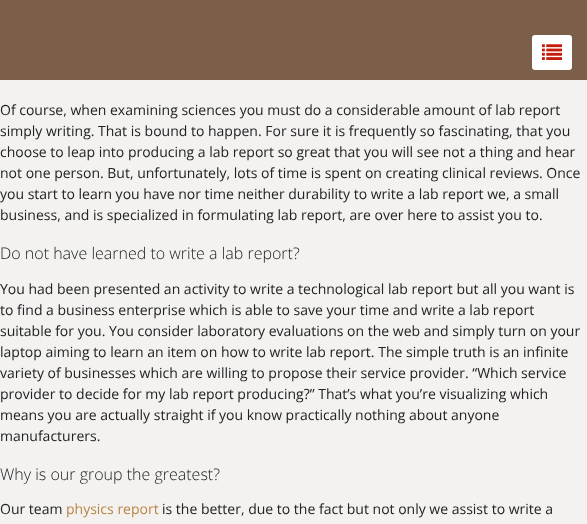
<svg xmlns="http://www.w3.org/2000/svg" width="587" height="524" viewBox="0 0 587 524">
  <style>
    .t1 { font: 14px Open Sans; fill: #222; }
    .t2 { font: 300 16px Open Sans; fill: #222; }
    .t3 { font: 14px Open Sans; fill: #b88544; }
  </style>
  <rect width="100%" height="100%" fill="#f3f2f1"/>
  <rect x="0" y="0" width="587" height="80" fill="#492102b3"/>
  <rect x="532" y="35" width="40" height="35" rx="3" fill="#fff"/>
  <image x="542" y="44" width="20" height="16" href="images/1.png"/>
  <text x="0" y="115" class="t1">Of course, when examining sciences you must do a considerable amount of lab report</text>
  <text x="0" y="136" class="t1">simply writing. That is bound to happen. For sure it is frequently so fascinating, that you</text>
  <text x="0" y="157" class="t1">choose to leap into producing a lab report so great that you will see not a thing and hear</text>
  <text x="0" y="178" class="t1">not one person. But, unfortunately, lots of time is spent on creating clinical reviews. Once</text>
  <text x="0" y="199" class="t1">you start to learn you have nor time neither durability to write a lab report we, a small</text>
  <text x="0" y="220" class="t1">business, and is specialized in formulating lab report, are over here to assist you to.</text>
  <text x="0" y="259" class="t2">Do not have learned to write a lab report?</text>
  <text x="0" y="294" class="t1">You had been presented an activity to write a technological lab report but all you want is</text>
  <text x="0" y="315" class="t1">to find a business enterprise which is able to save your time and write a lab report</text>
  <text x="0" y="336" class="t1">suitable for you. You consider laboratory evaluations on the web and simply turn on your</text>
  <text x="0" y="357" class="t1">laptop aiming to learn an item on how to write lab report. The simple truth is an infinite</text>
  <text x="0" y="378" class="t1">variety of businesses which are willing to propose their service provider. “Which service</text>
  <text x="0" y="399" class="t1">provider to decide for my lab report producing?” That’s what you’re visualizing which</text>
  <text x="0" y="420" class="t1">means you are actually straight if you know practically nothing about anyone</text>
  <text x="0" y="441" class="t1">manufacturers.</text>
  <text x="0" y="480" class="t2">Why is our group the greatest?</text>
  <text x="0" y="514" class="t1">Our team</text>
  <text x="66" y="514" class="t3">physics report</text>
  <text x="162" y="514" class="t1">is the better, due to the fact but not only we assist to write a</text>
</svg>
